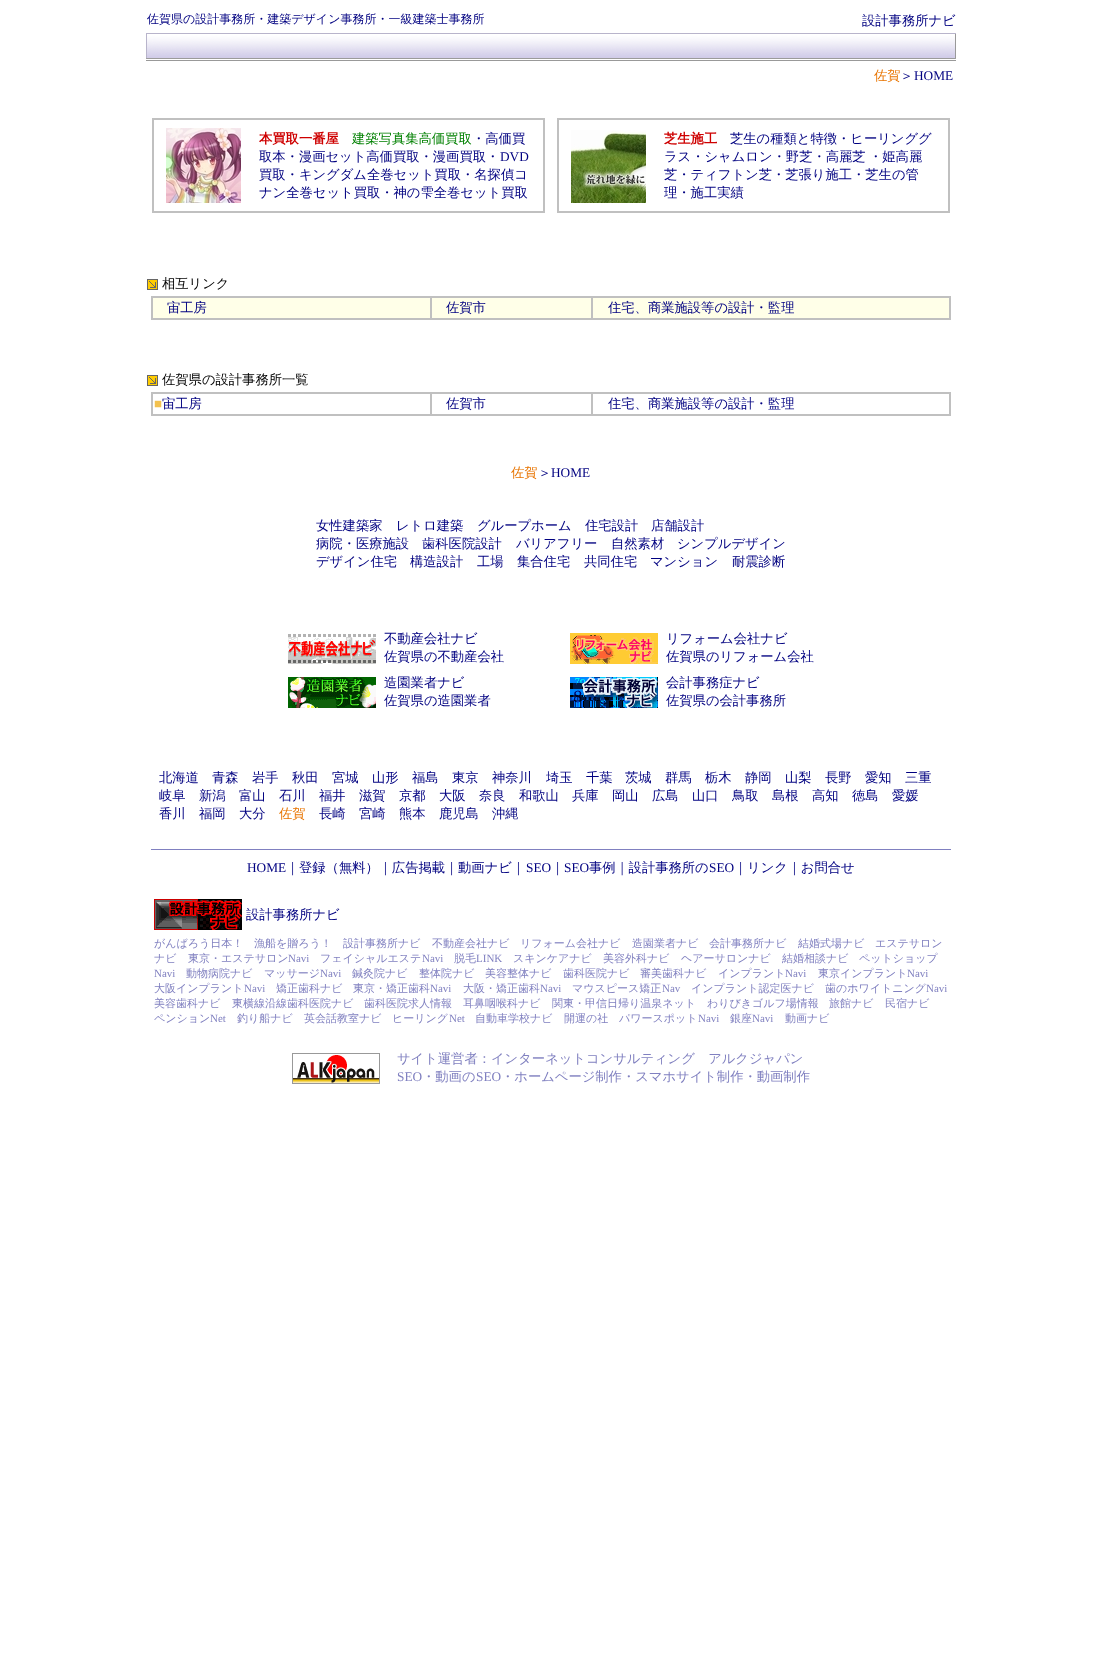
<svg xmlns="http://www.w3.org/2000/svg" width="1102" height="1673" viewBox="0 0 1102 1673">
  <style>
    .t1 { font: 500 12px WenQuanYi Zen Hei; fill: #000080; }
    .t2 { font: 500 13.3px WenQuanYi Zen Hei; fill: #000080; }
    .t3 { font: 500 13.3px WenQuanYi Zen Hei; fill: #e87400; }
    .t4 { font: 13.3px Liberation Serif; fill: #000080; }
    .t5 { font: bold 13.3px WenQuanYi Zen Hei; fill: #ce0000; }
    .t6 { font: 500 13.3px WenQuanYi Zen Hei; fill: #008000; }
    .t7 { font: 500 13.3px WenQuanYi Zen Hei; fill: #000; }
    .t8 { font: 13.3px Liberation Serif; fill: #f3c14e; }
    .t9 { font: 500 11px WenQuanYi Zen Hei; fill: #8080c0; }
    .t10 { font: 11px Liberation Serif; fill: #8080c0; }
    .t11 { font: 500 13.3px WenQuanYi Zen Hei; fill: #8080c0; }
    .t12 { font: 13.3px Liberation Serif; fill: #8080c0; }
  </style>
  <rect width="100%" height="100%" fill="#fff"/>
  <text x="147" y="23" class="t1">佐賀県の設計事務所・建築デザイン事務所・一級建築士事務所</text>
  <text x="862" y="25" class="t2">設計事務所ナビ</text>
  <image x="146" y="33" width="11" height="28" href="images/1.png"/>
  <image x="157" y="33" width="788" height="28" href="images/2.png"/>
  <image x="945" y="33" width="11" height="28" href="images/3.png"/>
  <text x="874" y="80" class="t3">佐賀</text>
  <text x="900" y="80" class="t2">＞</text>
  <text x="914" y="80" class="t4">HOME</text>
  <rect x="152" y="118" width="393" height="95" fill="#c0c0c0"/>
  <rect x="154" y="120" width="389" height="91" fill="#fff"/>
  <image x="166" y="128" width="75" height="75" href="images/4.png"/>
  <text x="259" y="143" class="t5">本買取一番屋</text>
  <text x="352" y="143" class="t6">建築写真集高価買取</text>
  <text x="472" y="143" class="t2">・高価買</text>
  <text x="259" y="161" class="t2">取本・漫画セット高価買取・漫画買取・</text>
  <text x="500" y="161" class="t4">DVD</text>
  <text x="259" y="179" class="t2">買取・キングダム全巻セット買取・名探偵コ</text>
  <text x="259" y="197" class="t2">ナン全巻セット買取・神の雫全巻セット買取</text>
  <rect x="557" y="118" width="393" height="95" fill="#c0c0c0"/>
  <rect x="559" y="120" width="389" height="91" fill="#fff"/>
  <image x="571" y="130" width="75" height="73" href="images/5.png"/>
  <text x="664" y="143" class="t5">芝生施工</text>
  <text x="730" y="143" class="t2">芝生の種類と特徴・ヒーリンググ</text>
  <text x="664" y="161" class="t2">ラス・シャムロン・野芝・高麗芝</text>
  <text x="869" y="161" class="t2">・姫高麗</text>
  <text x="664" y="179" class="t2">芝・ティフトン芝・芝張り施工・芝生の管</text>
  <text x="664" y="197" class="t2">理・施工実績</text>
  <image x="147" y="279" width="11" height="11" href="images/6.png"/>
  <text x="162" y="288" class="t7">相互リンク</text>
  <rect x="151" y="296" width="800" height="24" fill="#c0c0c0"/>
  <rect x="153" y="298" width="277" height="20" fill="#ffffe8"/>
  <text x="167" y="312" class="t2">宙工房</text>
  <rect x="432" y="298" width="159" height="20" fill="#ffffe8"/>
  <text x="446" y="312" class="t2">佐賀市</text>
  <rect x="593" y="298" width="356" height="20" fill="#ffffe8"/>
  <text x="608" y="312" class="t2">住宅、商業施設等の設計・監理</text>
  <image x="147" y="375" width="11" height="11" href="images/6.png"/>
  <text x="162" y="384" class="t7">佐賀県の設計事務所一覧</text>
  <rect x="151" y="392" width="800" height="24" fill="#c0c0c0"/>
  <rect x="153" y="394" width="277" height="20" fill="#fff"/>
  <text x="154" y="408" class="t8">■</text>
  <text x="162" y="408" class="t2">宙工房</text>
  <rect x="432" y="394" width="159" height="20" fill="#fff"/>
  <text x="446" y="408" class="t2">佐賀市</text>
  <rect x="593" y="394" width="356" height="20" fill="#fff"/>
  <text x="608" y="408" class="t2">住宅、商業施設等の設計・監理</text>
  <text x="511" y="477" class="t3">佐賀</text>
  <text x="538" y="477" class="t2">＞</text>
  <text x="551" y="477" class="t4">HOME</text>
  <text x="316" y="530" class="t2">女性建築家</text>
  <text x="396" y="530" class="t2">レトロ建築</text>
  <text x="477" y="530" class="t2">グループホーム</text>
  <text x="585" y="530" class="t2">住宅設計</text>
  <text x="651" y="530" class="t2">店舗設計</text>
  <text x="316" y="548" class="t2">病院・医療施設</text>
  <text x="422" y="548" class="t2">歯科医院設計</text>
  <text x="516" y="548" class="t2">バリアフリー</text>
  <text x="611" y="548" class="t2">自然素材</text>
  <text x="677" y="548" class="t2">シンプルデザイン</text>
  <text x="316" y="566" class="t2">デザイン住宅</text>
  <text x="410" y="566" class="t2">構造設計</text>
  <text x="477" y="566" class="t2">工場</text>
  <text x="517" y="566" class="t2">集合住宅</text>
  <text x="584" y="566" class="t2">共同住宅</text>
  <text x="650" y="566" class="t2">マンション</text>
  <text x="732" y="566" class="t2">耐震診断</text>
  <image x="288" y="634" width="88" height="30" href="images/7.png"/>
  <text x="384" y="643" class="t2">不動産会社ナビ</text>
  <text x="384" y="661" class="t2">佐賀県の不動産会社</text>
  <image x="570" y="633" width="88" height="31" href="images/8.png"/>
  <text x="666" y="643" class="t2">リフォーム会社ナビ</text>
  <text x="666" y="661" class="t2">佐賀県のリフォーム会社</text>
  <image x="288" y="677" width="88" height="31" href="images/9.png"/>
  <text x="384" y="687" class="t2">造園業者ナビ</text>
  <text x="384" y="705" class="t2">佐賀県の造園業者</text>
  <image x="570" y="677" width="88" height="31" href="images/10.png"/>
  <text x="666" y="687" class="t2">会計事務症ナビ</text>
  <text x="666" y="705" class="t2">佐賀県の会計事務所</text>
  <text x="159" y="782" class="t2">北海道</text>
  <text x="212" y="782" class="t2">青森</text>
  <text x="252" y="782" class="t2">岩手</text>
  <text x="292" y="782" class="t2">秋田</text>
  <text x="332" y="782" class="t2">宮城</text>
  <text x="372" y="782" class="t2">山形</text>
  <text x="412" y="782" class="t2">福島</text>
  <text x="452" y="782" class="t2">東京</text>
  <text x="492" y="782" class="t2">神奈川</text>
  <text x="546" y="782" class="t2">埼玉</text>
  <text x="586" y="782" class="t2">千葉</text>
  <text x="625" y="782" class="t2">茨城</text>
  <text x="665" y="782" class="t2">群馬</text>
  <text x="705" y="782" class="t2">栃木</text>
  <text x="745" y="782" class="t2">静岡</text>
  <text x="785" y="782" class="t2">山梨</text>
  <text x="825" y="782" class="t2">長野</text>
  <text x="865" y="782" class="t2">愛知</text>
  <text x="905" y="782" class="t2">三重</text>
  <text x="159" y="800" class="t2">岐阜</text>
  <text x="199" y="800" class="t2">新潟</text>
  <text x="239" y="800" class="t2">富山</text>
  <text x="279" y="800" class="t2">石川</text>
  <text x="319" y="800" class="t2">福井</text>
  <text x="359" y="800" class="t2">滋賀</text>
  <text x="399" y="800" class="t2">京都</text>
  <text x="439" y="800" class="t2">大阪</text>
  <text x="479" y="800" class="t2">奈良</text>
  <text x="519" y="800" class="t2">和歌山</text>
  <text x="572" y="800" class="t2">兵庫</text>
  <text x="612" y="800" class="t2">岡山</text>
  <text x="652" y="800" class="t2">広島</text>
  <text x="692" y="800" class="t2">山口</text>
  <text x="732" y="800" class="t2">鳥取</text>
  <text x="772" y="800" class="t2">島根</text>
  <text x="812" y="800" class="t2">高知</text>
  <text x="852" y="800" class="t2">徳島</text>
  <text x="892" y="800" class="t2">愛媛</text>
  <text x="159" y="818" class="t2">香川</text>
  <text x="199" y="818" class="t2">福岡</text>
  <text x="239" y="818" class="t2">大分</text>
  <text x="279" y="818" class="t3">佐賀</text>
  <text x="319" y="818" class="t2">長崎</text>
  <text x="359" y="818" class="t2">宮崎</text>
  <text x="399" y="818" class="t2">熊本</text>
  <text x="439" y="818" class="t2">鹿児島</text>
  <text x="492" y="818" class="t2">沖縄</text>
  <rect x="151" y="849" width="800" height="1" fill="#8080c0"/>
  <text x="247" y="872" class="t4">HOME</text>
  <text x="286" y="872" class="t2">｜登録（無料）｜広告掲載｜動画ナビ｜</text>
  <text x="526" y="872" class="t4">SEO</text>
  <text x="551" y="872" class="t2">｜</text>
  <text x="564" y="872" class="t4">SEO</text>
  <text x="589" y="872" class="t2">事例｜設計事務所の</text>
  <text x="709" y="872" class="t4">SEO</text>
  <text x="734" y="872" class="t2">｜リンク｜お問合せ</text>
  <image x="154" y="899" width="88" height="31" href="images/11.png"/>
  <text x="246" y="919" class="t2">設計事務所ナビ</text>
  <text x="154" y="947" class="t9">がんばろう日本！</text>
  <text x="254" y="947" class="t9">漁船を贈ろう！</text>
  <text x="343" y="947" class="t9">設計事務所ナビ</text>
  <text x="432" y="947" class="t9">不動産会社ナビ</text>
  <text x="520" y="947" class="t9">リフォーム会社ナビ</text>
  <text x="632" y="947" class="t9">造園業者ナビ</text>
  <text x="709" y="947" class="t9">会計事務所ナビ</text>
  <text x="798" y="947" class="t9">結婚式場ナビ</text>
  <text x="875" y="947" class="t9">エステサロン</text>
  <text x="154" y="962" class="t9">ナビ</text>
  <text x="188" y="962" class="t9">東京・エステサロン</text>
  <text x="288" y="962" class="t10">Navi</text>
  <text x="320" y="962" class="t9">フェイシャルエステ</text>
  <text x="422" y="962" class="t10">Navi</text>
  <text x="454" y="962" class="t9">脱毛</text>
  <text x="476" y="962" class="t10">LINK</text>
  <text x="513" y="962" class="t9">スキンケアナビ</text>
  <text x="603" y="962" class="t9">美容外科ナビ</text>
  <text x="681" y="962" class="t9">ヘアーサロンナビ</text>
  <text x="782" y="962" class="t9">結婚相談ナビ</text>
  <text x="859" y="962" class="t9">ペットショップ</text>
  <text x="154" y="977" class="t10">Navi</text>
  <text x="186" y="977" class="t9">動物病院ナビ</text>
  <text x="264" y="977" class="t9">マッサージ</text>
  <text x="320" y="977" class="t10">Navi</text>
  <text x="352" y="977" class="t9">鍼灸院ナビ</text>
  <text x="419" y="977" class="t9">整体院ナビ</text>
  <text x="485" y="977" class="t9">美容整体ナビ</text>
  <text x="563" y="977" class="t9">歯科医院ナビ</text>
  <text x="640" y="977" class="t9">審美歯科ナビ</text>
  <text x="718" y="977" class="t9">インプラント</text>
  <text x="785" y="977" class="t10">Navi</text>
  <text x="818" y="977" class="t9">東京インプラント</text>
  <text x="907" y="977" class="t10">Navi</text>
  <text x="154" y="992" class="t9">大阪インプラント</text>
  <text x="244" y="992" class="t10">Navi</text>
  <text x="276" y="992" class="t9">矯正歯科ナビ</text>
  <text x="353" y="992" class="t9">東京・矯正歯科</text>
  <text x="430" y="992" class="t10">Navi</text>
  <text x="463" y="992" class="t9">大阪・矯正歯科</text>
  <text x="540" y="992" class="t10">Navi</text>
  <text x="572" y="992" class="t9">マウスピース矯正</text>
  <text x="662" y="992" class="t10">Nav</text>
  <text x="691" y="992" class="t9">インプラント認定医ナビ</text>
  <text x="825" y="992" class="t9">歯のホワイトニング</text>
  <text x="926" y="992" class="t10">Navi</text>
  <text x="154" y="1007" class="t9">美容歯科ナビ</text>
  <text x="232" y="1007" class="t9">東横線沿線歯科医院ナビ</text>
  <text x="364" y="1007" class="t9">歯科医院求人情報</text>
  <text x="463" y="1007" class="t9">耳鼻咽喉科ナビ</text>
  <text x="552" y="1007" class="t9">関東・甲信日帰り温泉ネット</text>
  <text x="707" y="1007" class="t9">わりびきゴルフ場情報</text>
  <text x="829" y="1007" class="t9">旅館ナビ</text>
  <text x="885" y="1007" class="t9">民宿ナビ</text>
  <text x="154" y="1022" class="t9">ペンション</text>
  <text x="210" y="1022" class="t10">Net</text>
  <text x="237" y="1022" class="t9">釣り船ナビ</text>
  <text x="304" y="1022" class="t9">英会話教室ナビ</text>
  <text x="392" y="1022" class="t9">ヒーリング</text>
  <text x="449" y="1022" class="t10">Net</text>
  <text x="475" y="1022" class="t9">自動車学校ナビ</text>
  <text x="564" y="1022" class="t9">開運の社</text>
  <text x="619" y="1022" class="t9">パワースポット</text>
  <text x="698" y="1022" class="t10">Navi</text>
  <text x="730" y="1022" class="t9">銀座</text>
  <text x="752" y="1022" class="t10">Navi</text>
  <text x="785" y="1022" class="t9">動画ナビ</text>
  <image x="292" y="1053" width="88" height="31" href="images/12.png"/>
  <text x="397" y="1063" class="t11">サイト運営者：インターネットコンサルティング　アルクジャパン</text>
  <text x="397" y="1081" class="t12">SEO</text>
  <text x="422" y="1081" class="t11">・動画の</text>
  <text x="476" y="1081" class="t12">SEO</text>
  <text x="501" y="1081" class="t11">・ホームページ制作・スマホサイト制作・動画制作</text>
</svg>
